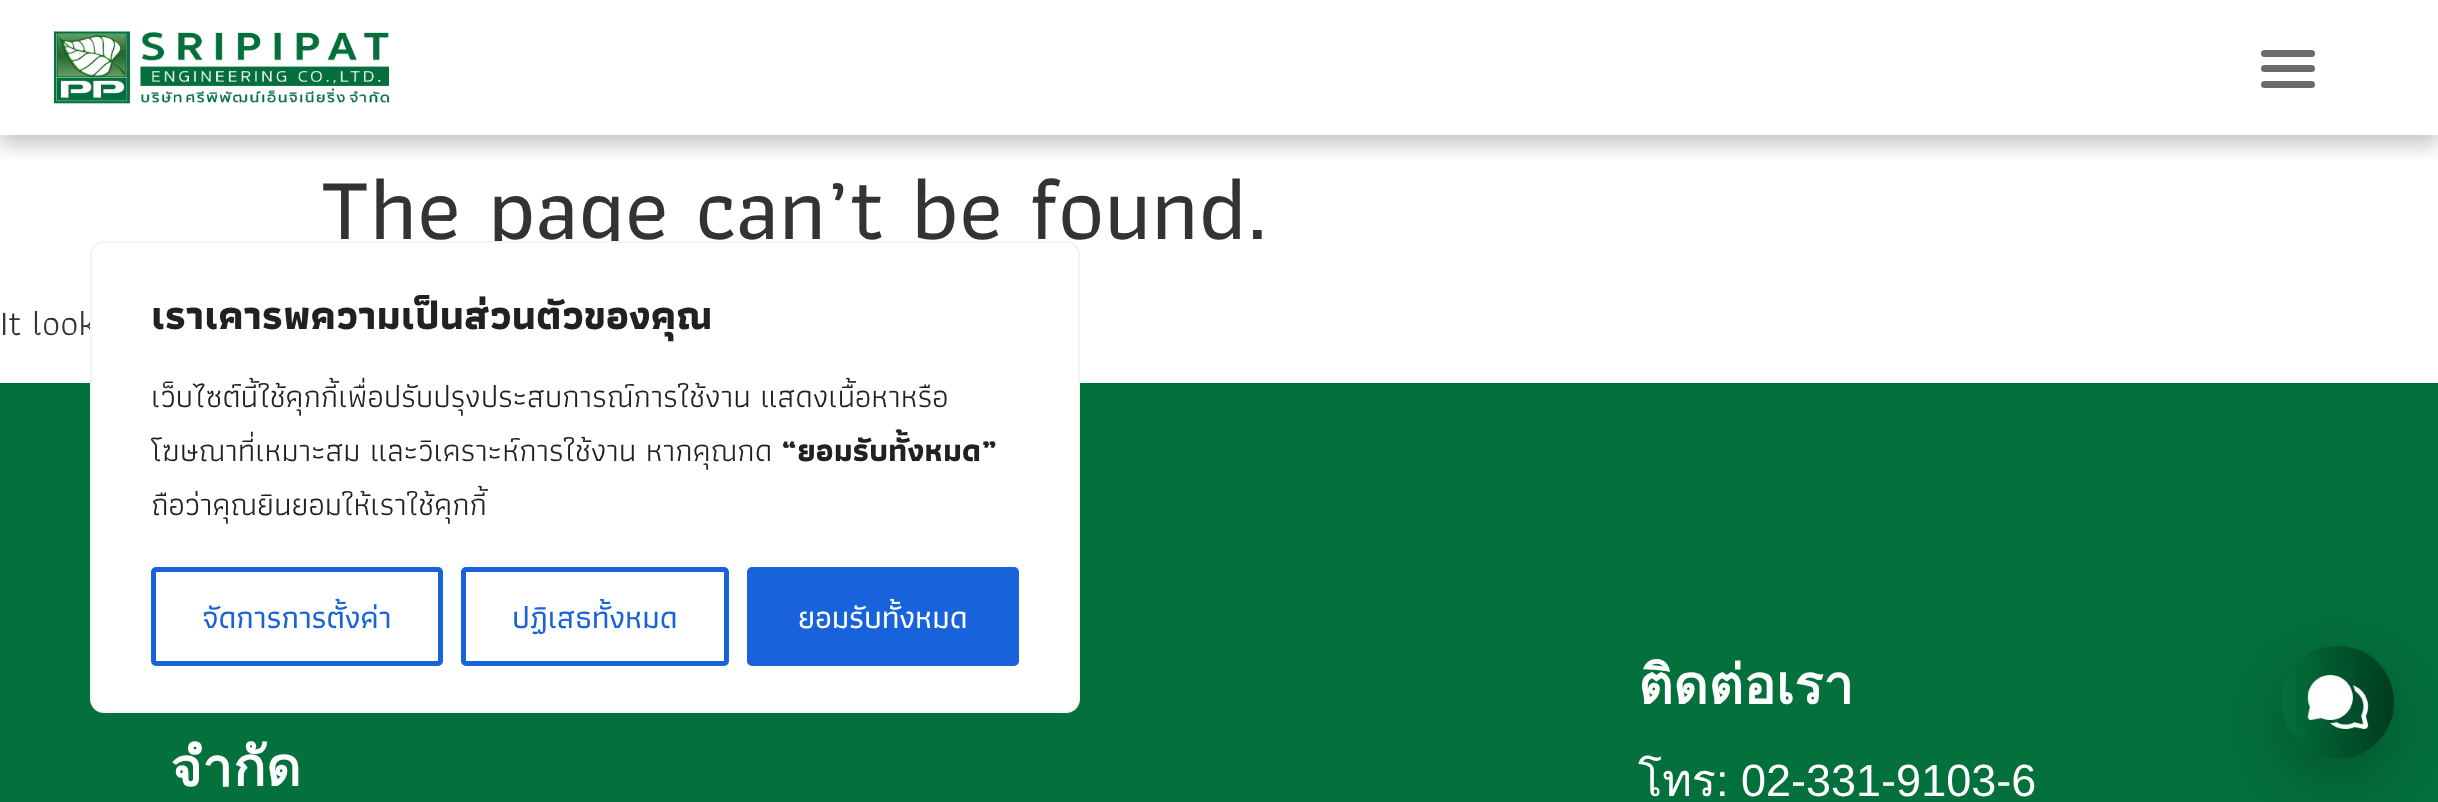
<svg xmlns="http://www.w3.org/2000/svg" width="2438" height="802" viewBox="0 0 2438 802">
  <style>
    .t1 { font: 500 90px Athiti; fill: #333; }
    .t2 { font: 36px Athiti; fill: #333; }
    .t3 { font: bold 40.5px Athiti; fill: #212121; }
    .t4 { font: 31.5px Athiti; fill: #212121; }
    .t5 { font: bold 31.5px Athiti; fill: #212121; }
    .t6 { font: 500 31.5px Athiti; fill: #1863dc; }
    .t7 { font: 500 31.5px Athiti; fill: #fff; }
    .t8 { font: bold 54px Loma; fill: #fff; }
    .t9 { font: 45px Loma; fill: #fff; }
    .t10 { font: 45px Liberation Sans; fill: #fff; }
  </style>
  <defs>
    <clipPath id="clip1"><rect x="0" y="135" width="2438" height="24"/></clipPath>
  </defs>
  <rect width="100%" height="100%" fill="#fff"/>
  <g clip-path="url(#clip1)">
    <rect x="0" y="9" width="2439" height="135" fill="#00000040" filter="blur(11px)"/>
  </g>
  <image x="54" y="31" width="336" height="73" href="images/1.png"/>
  <rect x="2261" y="65" width="54" height="7" rx="3.5" fill="#6b6b6b"/>
  <rect x="2261" y="50" width="54" height="7" rx="3.5" fill="#6b6b6b"/>
  <rect x="2261" y="81" width="54" height="7" rx="3.5" fill="#6b6b6b"/>
  <text x="320" y="239" class="t1">The page can’t be found.</text>
  <text x="0" y="335" class="t2">It look</text>
  <rect x="0" y="383" width="2438" height="419" fill="#04703c"/>
  <rect x="91" y="242" width="988" height="470" rx="13" fill="#fff" stroke="#f4f4f4" stroke-width="2"/>
  <text x="151" y="329" class="t3">เราเคารพความเป็นส่วนตัวของคุณ</text>
  <text x="151" y="407" class="t4">เว็บไซต์นี้ใช้คุกกี้เพื่อปรับปรุงประสบการณ์การใช้งาน แสดงเนื้อหาหรือ</text>
  <text x="151" y="461" class="t4">โฆษณาที่เหมาะสม และวิเคราะห์การใช้งาน หากคุณกด</text>
  <text x="781" y="461" class="t5">“ยอมรับทั้งหมด”</text>
  <text x="151" y="515" class="t4">ถือว่าคุณยินยอมให้เราใช้คุกกี้</text>
  <rect x="153.5" y="569.5" width="287" height="94" rx="2.5" fill="none" stroke="#1863dc" stroke-width="5"/>
  <text x="202" y="628" class="t6">จัดการการตั้งค่า</text>
  <rect x="463.5" y="569.5" width="263" height="94" rx="2.5" fill="none" stroke="#1863dc" stroke-width="5"/>
  <text x="512" y="628" class="t6">ปฏิเสธทั้งหมด</text>
  <rect x="749.5" y="569.5" width="267" height="94" rx="2.5" fill="#1863dc" stroke="#1863dc" stroke-width="5"/>
  <text x="798" y="628" class="t7">ยอมรับทั้งหมด</text>
  <text x="171" y="786" class="t8">จำกัด</text>
  <text x="1638" y="704" class="t8">ติดต่อเรา</text>
  <text x="1638" y="796" class="t9">โทร</text>
  <text x="1716" y="796" class="t10">: 02-331-9103-6</text>
  <rect x="2282" y="668" width="112" height="113" rx="56" fill="#00000040" filter="blur(34px)"/>
  <image x="2282" y="645" width="112" height="113" href="images/2.png"/>
</svg>
